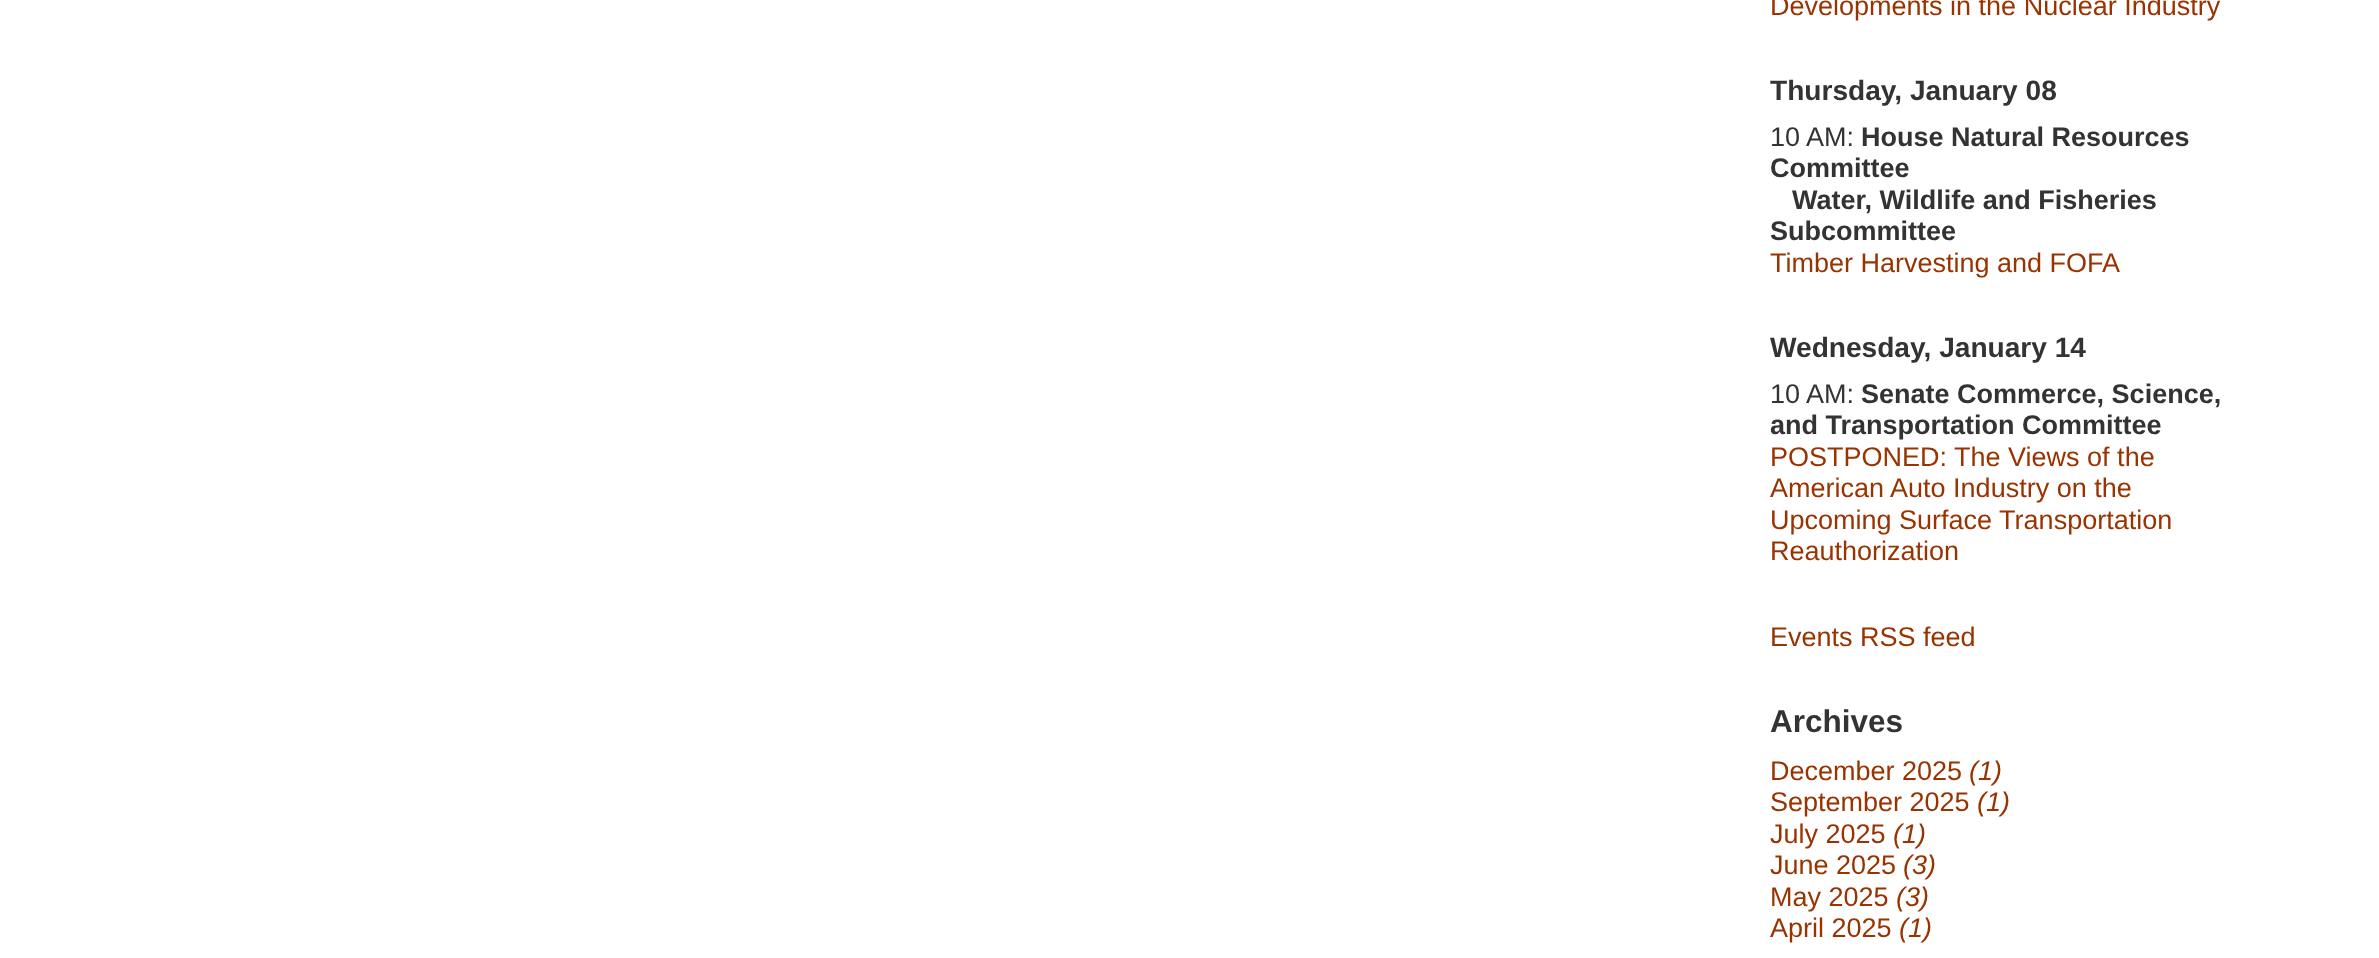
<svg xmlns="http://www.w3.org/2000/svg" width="2379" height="958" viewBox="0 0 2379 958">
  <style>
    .t1 { font: 27px Liberation Sans; fill: #930; }
    .t2 { font: bold 28.1px Liberation Sans; fill: #333; }
    .t3 { font: 27px Liberation Sans; fill: #333; }
    .t4 { font: bold 27px Liberation Sans; fill: #333; }
    .t5 { font: bold 31.5px Liberation Sans; fill: #333; }
    .t6 { font: italic 27px Liberation Sans; fill: #930; }
  </style>
  <rect width="100%" height="100%" fill="#fff"/>
  <text x="1770" y="15" class="t1">Developments in the Nuclear Industry</text>
  <text x="1770" y="100" class="t2">Thursday, January 08</text>
  <text x="1770" y="146" class="t3">10 AM:</text>
  <text x="1861" y="146" class="t4">House Natural Resources</text>
  <text x="1770" y="177" class="t4">Committee</text>
  <text x="1792" y="209" class="t4">Water, Wildlife and Fisheries</text>
  <text x="1770" y="240" class="t4">Subcommittee</text>
  <text x="1770" y="272" class="t1">Timber Harvesting and FOFA</text>
  <text x="1770" y="357" class="t2">Wednesday, January 14</text>
  <text x="1770" y="403" class="t3">10 AM:</text>
  <text x="1861" y="403" class="t4">Senate Commerce, Science,</text>
  <text x="1770" y="434" class="t4">and Transportation Committee</text>
  <text x="1770" y="466" class="t1">POSTPONED: The Views of the</text>
  <text x="1770" y="497" class="t1">American Auto Industry on the</text>
  <text x="1770" y="529" class="t1">Upcoming Surface Transportation</text>
  <text x="1770" y="560" class="t1">Reauthorization</text>
  <text x="1770" y="646" class="t1">Events RSS feed</text>
  <text x="1770" y="732" class="t5">Archives</text>
  <text x="1770" y="780" class="t1">December 2025</text>
  <text x="1969" y="780" class="t6">(1)</text>
  <text x="1770" y="811" class="t1">September 2025</text>
  <text x="1977" y="811" class="t6">(1)</text>
  <text x="1770" y="843" class="t1">July 2025</text>
  <text x="1893" y="843" class="t6">(1)</text>
  <text x="1770" y="874" class="t1">June 2025</text>
  <text x="1903" y="874" class="t6">(3)</text>
  <text x="1770" y="906" class="t1">May 2025</text>
  <text x="1896" y="906" class="t6">(3)</text>
  <text x="1770" y="937" class="t1">April 2025</text>
  <text x="1899" y="937" class="t6">(1)</text>
</svg>
